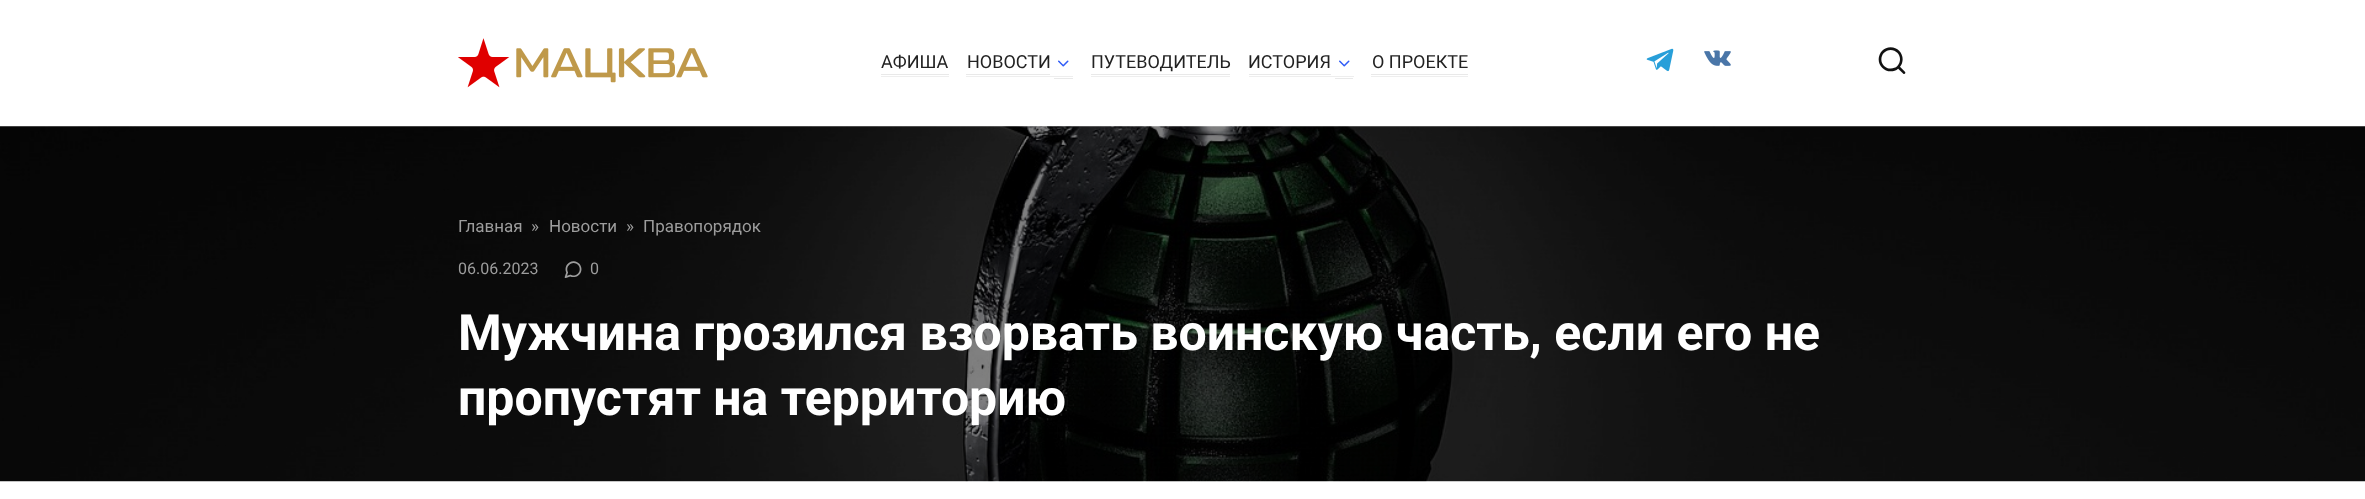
<svg xmlns="http://www.w3.org/2000/svg" width="2365" height="499" viewBox="0 0 2365 499">
  <style>
    .t1 { font: 18px Roboto; fill: #222; }
    .t2 { font: 18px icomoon; fill: #305cf7; }
    .t3 { font: 32px icomoon; fill: #111; }
    .t4 { font: 17px Roboto; fill: #9d9d9d; }
    .t5 { font: 16px Roboto; fill: #9d9d9d; }
    .t6 { font: 20px icomoon; fill: #9d9d9d; }
    .t7 { font: bold 50px Roboto; fill: #fff; }
  </style>
  <rect width="100%" height="100%" fill="#fff"/>
  <image x="458" y="38" width="250" height="50" href="images/1.png"/>
  <rect x="881" y="76" width="68" height="1" fill="#eee"/>
  <text x="881" y="68" class="t1">АФИША</text>
  <rect x="881" y="74" width="68" height="1" fill="#e9e9e9"/>
  <rect x="966" y="76" width="107" height="1" fill="#eee"/>
  <rect x="966" y="74" width="84" height="1" fill="#e9e9e9"/>
  <rect x="1054" y="78" width="19" height="1" fill="#e9e9e9"/>
  <text x="967" y="68" class="t1">НОВОСТИ</text>
  <text x="1054" y="71" class="t2">⮟</text>
  <rect x="1091" y="76" width="139" height="1" fill="#eee"/>
  <text x="1091" y="68" class="t1">ПУТЕВОДИТЕЛЬ</text>
  <rect x="1091" y="74" width="139" height="1" fill="#e9e9e9"/>
  <rect x="1249" y="76" width="105" height="1" fill="#eee"/>
  <rect x="1249" y="74" width="82" height="1" fill="#e9e9e9"/>
  <rect x="1335" y="78" width="18" height="1" fill="#e9e9e9"/>
  <text x="1248" y="68" class="t1">ИСТОРИЯ</text>
  <text x="1335" y="71" class="t2">⮟</text>
  <rect x="1371" y="76" width="97" height="1" fill="#eee"/>
  <text x="1372" y="68" class="t1">О ПРОЕКТЕ</text>
  <rect x="1371" y="74" width="97" height="1" fill="#e9e9e9"/>
  <image x="1646" y="48" width="28" height="24" href="images/2.png"/>
  <image x="1704" y="50" width="27" height="16" href="images/3.png"/>
  <text x="1876" y="74" class="t3">🔍</text>
  <image x="0" y="126" width="2365" height="356" href="images/4.png"/>
  <text x="458" y="232" class="t4">Главная</text>
  <text x="531" y="232" class="t4">»</text>
  <text x="549" y="232" class="t4">Новости</text>
  <text x="626" y="232" class="t4">»</text>
  <text x="643" y="232" class="t4">Правопорядок</text>
  <text x="458" y="274" class="t5">06.06.2023</text>
  <text x="563" y="278" class="t6">💭</text>
  <text x="590" y="274" class="t5">0</text>
  <text x="458" y="350" class="t7">Мужчина грозился взорвать воинскую часть, если его не</text>
  <text x="458" y="415" class="t7">пропустят на территорию</text>
</svg>
